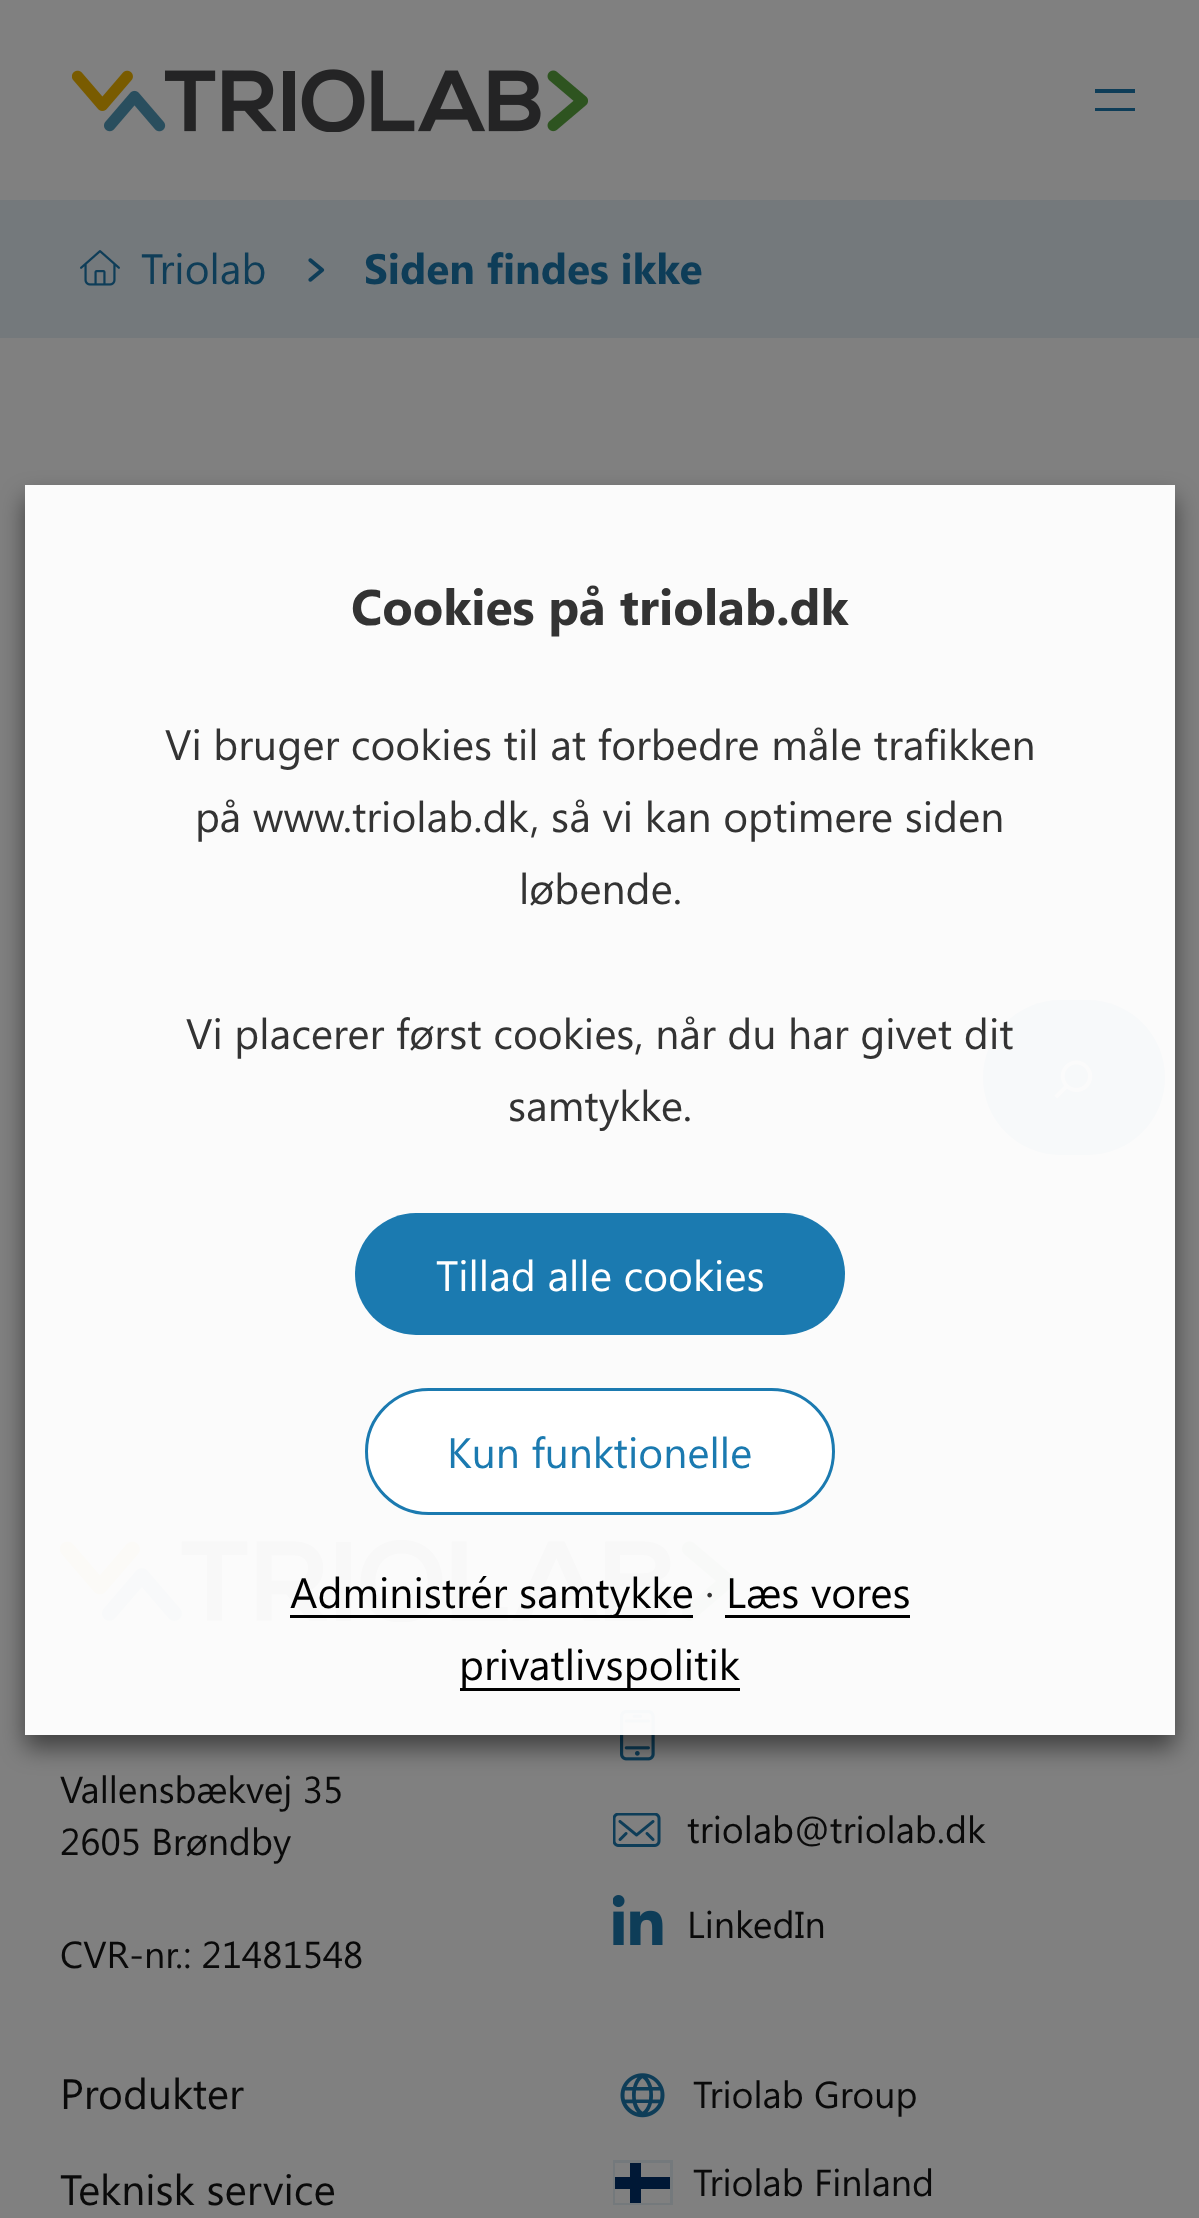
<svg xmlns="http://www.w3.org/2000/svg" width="1199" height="2218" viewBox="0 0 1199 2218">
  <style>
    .t1 { font: 42.5px Segoe UI; fill: #0e3d58; }
    .t2 { font: bold 42.5px Segoe UI; fill: #0e3d58; }
    .t3 { font: 37.5px Segoe UI; fill: #0a0a0a; }
    .t4 { font: 42.5px Segoe UI; fill: #0a0a0a; }
    .t5 { font: bold 50px Segoe UI; fill: #333; }
    .t6 { font: 42.5px Segoe UI; fill: #333; }
    .t7 { font: 42.5px Segoe UI; fill: #fff; }
    .t8 { font: 42.5px Segoe UI; fill: #1b7ab0; }
    .t9 { font: 42.5px Segoe UI; fill: #000; }
  </style>
  <defs>
    <clipPath id="clip1"><path d="M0 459H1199V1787H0ZM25 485H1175V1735H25Z" clip-rule="evenodd"/></clipPath>
  </defs>
  <rect width="100%" height="100%" fill="#808080"/>
  <image x="72" y="69" width="516" height="63" href="images/1.png"/>
  <rect x="1095" y="89" width="40" height="4" fill="#0e3d58"/>
  <rect x="1095" y="108" width="40" height="3" fill="#0e3d58"/>
  <rect x="0" y="200" width="1199" height="138" fill="#74797c"/>
  <image x="80" y="250" width="40" height="36" href="images/2.png"/>
  <text x="141" y="284" class="t1">Triolab</text>
  <image x="308" y="258" width="17" height="24" href="images/3.png"/>
  <text x="364" y="284" class="t2">Siden findes ikke</text>
  <rect x="37.5" y="1002.5" width="918" height="150" fill="none" stroke="#787878" stroke-width="5"/>
  <rect x="983" y="1000" width="182" height="155" rx="77.5" fill="#0e3d58"/>
  <image x="1054" y="1060" width="39" height="39" href="images/4.png"/>
  <image x="60" y="1540" width="675" height="82" href="images/5.png"/>
  <text x="60" y="1803" class="t3">Vallensbækvej 35</text>
  <text x="60" y="1855" class="t3">2605 Brøndby</text>
  <text x="60" y="1968" class="t3">CVR-nr.: 21481548</text>
  <image x="620" y="1710" width="35" height="51" href="images/6.png"/>
  <image x="613" y="1813" width="48" height="34" href="images/7.png"/>
  <text x="687" y="1843" class="t3">triolab@triolab.dk</text>
  <image x="613" y="1895" width="50" height="50" href="images/8.png"/>
  <text x="687" y="1938" class="t3">LinkedIn</text>
  <text x="60" y="2109" class="t4">Produkter</text>
  <text x="60" y="2205" class="t4">Teknisk service</text>
  <image x="620" y="2073" width="45" height="45" href="images/9.png"/>
  <text x="693" y="2108" class="t3">Triolab Group</text>
  <rect x="614.5" y="2161.5" width="57" height="42" fill="none" stroke="#74797c" stroke-width="3"/>
  <rect x="615" y="2163" width="55" height="40" fill="#808080"/>
  <rect x="615" y="2177" width="55" height="12" fill="#001836"/>
  <rect x="630" y="2163" width="11" height="40" fill="#001836"/>
  <text x="693" y="2196" class="t3">Triolab Finland</text>
  <g clip-path="url(#clip1)">
    <rect x="25" y="498" width="1150" height="1250" fill="#00000080" filter="blur(12.5px)"/>
  </g>
  <rect x="25" y="485" width="1150" height="1250" fill="#fffffff7"/>
  <text x="351" y="625" class="t5">Cookies på triolab.dk</text>
  <text x="165" y="760" class="t6">Vi bruger cookies til at forbedre måle trafikken</text>
  <text x="195" y="832" class="t6">på www.triolab.dk, så vi kan optimere siden</text>
  <text x="519" y="904" class="t6">løbende.</text>
  <text x="186" y="1049" class="t6">Vi placerer først cookies, når du har givet dit</text>
  <text x="508" y="1121" class="t6">samtykke.</text>
  <rect x="355" y="1213" width="490" height="122" rx="61" fill="#1b7ab0"/>
  <text x="436" y="1291" class="t7">Tillad alle cookies</text>
  <rect x="366.5" y="1389.5" width="467" height="124" rx="62" fill="#fff" stroke="#1b7ab0" stroke-width="3"/>
  <text x="447" y="1468" class="t8">Kun funktionelle</text>
  <rect x="290" y="1615" width="403" height="3" fill="#000"/>
  <text x="290" y="1608" class="t9">Administrér samtykke</text>
  <text x="705" y="1608" class="t6">·</text>
  <text x="726" y="1608" class="t9">Læs vores</text>
  <rect x="725" y="1615" width="185" height="3" fill="#000"/>
  <rect x="460" y="1688" width="280" height="3" fill="#000"/>
  <text x="459" y="1680" class="t9">privatlivspolitik</text>
</svg>
